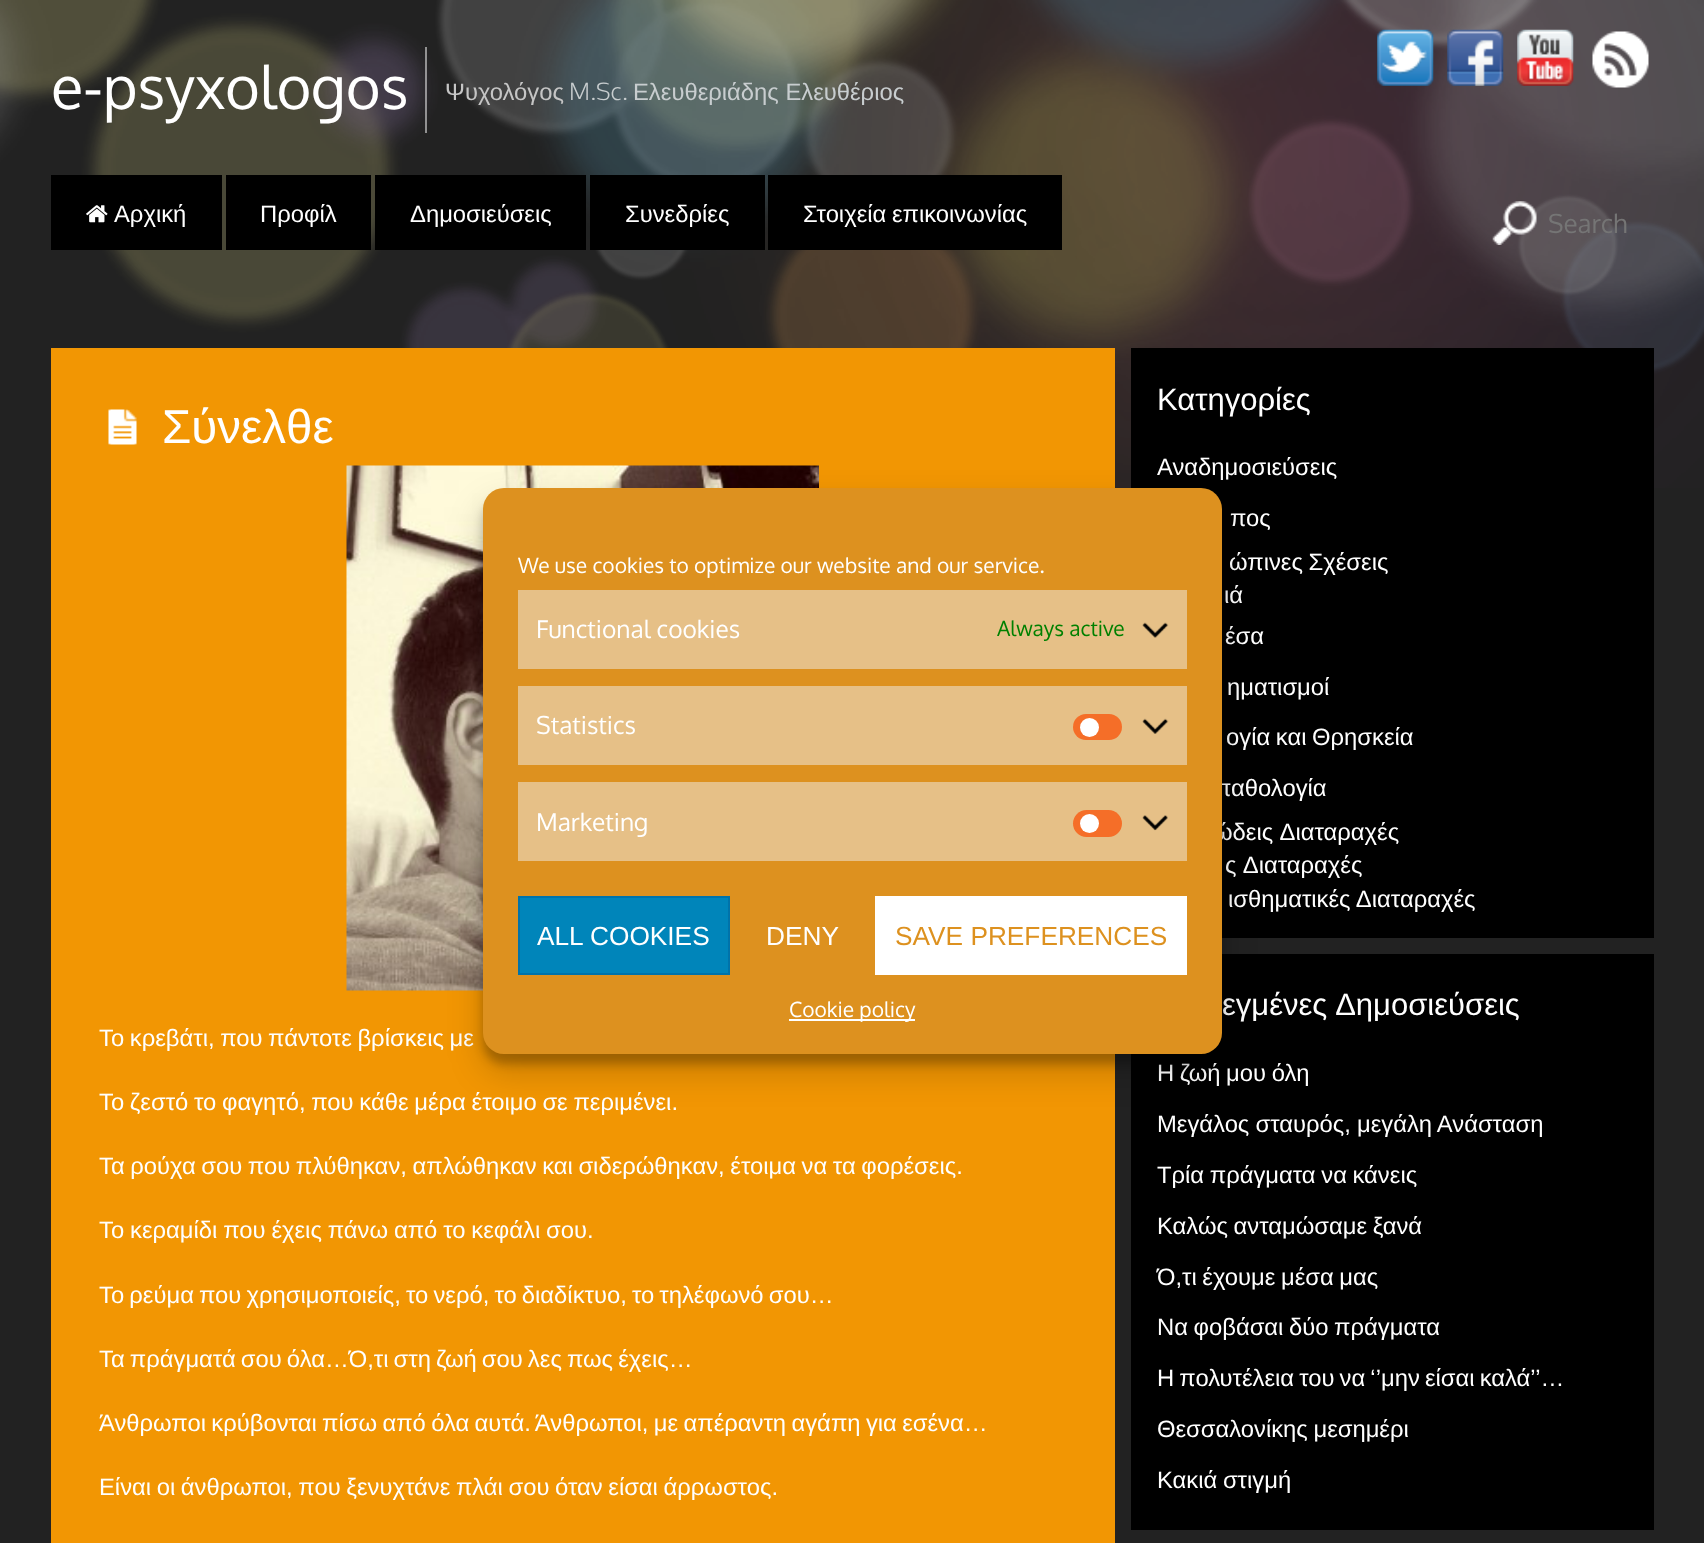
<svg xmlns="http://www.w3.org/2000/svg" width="1704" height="1543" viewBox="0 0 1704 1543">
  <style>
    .t1 { font: 59.5px Oxygen; fill: #fff; }
    .t2 { font: 23.8px Liberation Sans; fill: #c5c5c5; }
    .t3 { font: 300 23.8px Oxygen; fill: #c8cdcf; }
    .t4 { font: 23.8px Liberation Sans; fill: #c8cdcf; }
    .t5 { font: 23.8px Liberation Sans; fill: #fff; }
    .t6 { font: 26px Oxygen; fill: #757575; }
    .t7 { font: 47.5px Liberation Sans; fill: #fff; }
    .t8 { font: 31px Liberation Sans; fill: #fff; }
    .t9 { font: 21px Oxygen; fill: #fff; }
    .t10 { font: 24.5px Oxygen; fill: #fff; }
    .t11 { font: 21px Oxygen; fill: #008000; }
    .t12 { font: 26.25px Liberation Sans; fill: #fff; }
    .t13 { font: 26.25px Liberation Sans; fill: #dd911f; }
  </style>
  <rect width="100%" height="100%" fill="#222"/>
  <image x="0" y="0" width="1704" height="488" href="images/1.png"/>
  <text x="51" y="109" class="t1">e-psyxologos</text>
  <rect x="425" y="47" width="2" height="86" fill="#ffffff80"/>
  <text x="445" y="100" class="t2">Ψυχολόγος</text>
  <text x="569" y="100" class="t3">M.Sc.</text>
  <text x="633" y="100" class="t4">Ελευθεριάδης Ελευθέριος</text>
  <rect x="51" y="175" width="171" height="75" fill="#000"/>
  <image x="86" y="205" width="22" height="18" href="images/2.png"/>
  <text x="114" y="222" class="t5">Αρχική</text>
  <rect x="226" y="175" width="145" height="75" fill="#000"/>
  <text x="260" y="222" class="t5">Προφίλ</text>
  <rect x="375" y="175" width="211" height="75" fill="#000"/>
  <text x="410" y="222" class="t5">Δημοσιεύσεις</text>
  <rect x="590" y="175" width="175" height="75" fill="#000"/>
  <text x="625" y="222" class="t5">Συνεδρίες</text>
  <rect x="768" y="175" width="294" height="75" fill="#000"/>
  <text x="803" y="222" word-spacing="-1" class="t5">Στοιχεία επικοινωνίας</text>
  <image x="1377" y="29" width="57" height="57" href="images/3.png"/>
  <image x="1447" y="29" width="57" height="57" href="images/4.png"/>
  <image x="1517" y="29" width="57" height="57" href="images/5.png"/>
  <image x="1592" y="31" width="57" height="57" href="images/6.png"/>
  <image x="1492" y="201" width="45" height="44" href="images/7.png"/>
  <text x="1548" y="233" class="t6">Search</text>
  <rect x="51" y="348" width="1064" height="1195" fill="#f29603"/>
  <image x="108" y="409" width="29" height="36" href="images/8.png"/>
  <text x="162" y="443" class="t7">Σύνελθε</text>
  <image x="346" y="465" width="473" height="526" href="images/9.png"/>
  <text x="99" y="1046" word-spacing="-1" class="t5">Το κρεβάτι, που πάντοτε βρίσκεις με</text>
  <text x="99" y="1110" word-spacing="-0.9" class="t5">Το ζεστό το φαγητό, που κάθε μέρα έτοιμο σε περιμένει.</text>
  <text x="99" y="1174" word-spacing="-1" class="t5">Τα ρούχα σου που πλύθηκαν, απλώθηκαν και σιδερώθηκαν, έτοιμα να τα φορέσεις.</text>
  <text x="99" y="1238" word-spacing="-0.75" class="t5">Το κεραμίδι που έχεις πάνω από το κεφάλι σου.</text>
  <text x="99" y="1303" word-spacing="-1.5" class="t5">Το ρεύμα που χρησιμοποιείς, το νερό, το διαδίκτυο, το τηλέφωνό σου…</text>
  <text x="99" y="1367" word-spacing="-1.5" class="t5">Τα πράγματά σου όλα…Ό,τι στη ζωή σου λες πως έχεις…</text>
  <text x="99" y="1431" word-spacing="-1.25" class="t5">Άνθρωποι κρύβονται πίσω από όλα αυτά. Άνθρωποι, με απέραντη αγάπη για εσένα…</text>
  <text x="99" y="1495" word-spacing="-1" class="t5">Είναι οι άνθρωποι, που ξενυχτάνε πλάι σου όταν είσαι άρρωστος.</text>
  <rect x="1131" y="348" width="523" height="590" fill="#000"/>
  <text x="1157" y="410" class="t8">Κατηγορίες</text>
  <text x="1157" y="475" class="t5">Αναδημοσιεύσεις</text>
  <text x="1230" y="526" class="t5">πος</text>
  <text x="1229" y="570" word-spacing="-1" class="t5">ώπινες Σχέσεις</text>
  <text x="1224" y="603" class="t5">ιά</text>
  <text x="1225" y="644" class="t5">έσα</text>
  <text x="1227" y="695" class="t5">ηματισμοί</text>
  <text x="1226" y="745" word-spacing="-1" class="t5">ογία και Θρησκεία</text>
  <text x="1215" y="796" class="t5">παθολογία</text>
  <text x="1214" y="840" word-spacing="1" class="t5">ώδεις Διαταραχές</text>
  <text x="1225" y="873" word-spacing="1" class="t5">ς Διαταραχές</text>
  <text x="1228" y="907" class="t5">ισθηματικές Διαταραχές</text>
  <rect x="1131" y="954" width="523" height="576" fill="#000"/>
  <text x="1222" y="1015" word-spacing="1" class="t8">εγμένες Δημοσιεύσεις</text>
  <text x="1157" y="1081" word-spacing="-1" class="t5">Η ζωή μου όλη</text>
  <text x="1157" y="1132" word-spacing="-0.5" class="t5">Μεγάλος σταυρός, μεγάλη Ανάσταση</text>
  <text x="1157" y="1183" word-spacing="-1" class="t5">Τρία πράγματα να κάνεις</text>
  <text x="1157" y="1234" word-spacing="-1" class="t5">Καλώς ανταμώσαμε ξανά</text>
  <text x="1157" y="1285" word-spacing="-1" class="t5">Ό,τι έχουμε μέσα μας</text>
  <text x="1157" y="1335" word-spacing="-1" class="t5">Να φοβάσαι δύο πράγματα</text>
  <text x="1157" y="1386" word-spacing="-1.5" class="t5">Η πολυτέλεια του να ‘’μην είσαι καλά’’…</text>
  <text x="1157" y="1437" word-spacing="-1" class="t5">Θεσσαλονίκης μεσημέρι</text>
  <text x="1157" y="1488" word-spacing="-1" class="t5">Κακιά στιγμή</text>
  <rect x="483" y="499" width="739" height="565" rx="21" fill="#0000003b" filter="blur(5px)"/>
  <rect x="483" y="506" width="739" height="565" rx="21" fill="#00000030" filter="blur(17.5px)"/>
  <rect x="483" y="488" width="739" height="566" rx="21" fill="#dd911f"/>
  <text x="518" y="573" class="t9">We use cookies to optimize our website and our service.</text>
  <rect x="518" y="590" width="669" height="79" fill="#e6c087"/>
  <text x="536" y="638" class="t10">Functional cookies</text>
  <text x="997" y="636" class="t11">Always active</text>
  <image x="1142" y="622" width="27" height="16" href="images/10.png"/>
  <rect x="518" y="686" width="669" height="79" fill="#e6c087"/>
  <text x="536" y="734" class="t10">Statistics</text>
  <rect x="1073" y="714" width="49" height="26" rx="13" fill="#f56e28"/>
  <circle cx="1089.5" cy="727.5" r="9.5" fill="#fff"/>
  <image x="1142" y="718" width="27" height="16" href="images/11.png"/>
  <rect x="518" y="782" width="669" height="79" fill="#e6c087"/>
  <text x="536" y="831" class="t10">Marketing</text>
  <rect x="1073" y="810" width="49" height="27" rx="13.5" fill="#f56e28"/>
  <circle cx="1089.5" cy="823.5" r="9.5" fill="#fff"/>
  <image x="1142" y="815" width="26" height="16" href="images/12.png"/>
  <rect x="519" y="897" width="210" height="77" fill="#0085ba" stroke="#0073aa" stroke-width="2"/>
  <text x="537" y="945" class="t12">ALL COOKIES</text>
  <text x="766" y="945" class="t12">DENY</text>
  <rect x="875" y="896" width="312" height="79" fill="#fff"/>
  <text x="895" y="945" class="t13">SAVE PREFERENCES</text>
  <rect x="789" y="1019" width="126" height="2" fill="#fff"/>
  <text x="789" y="1017" class="t9">Cookie policy</text>
</svg>
